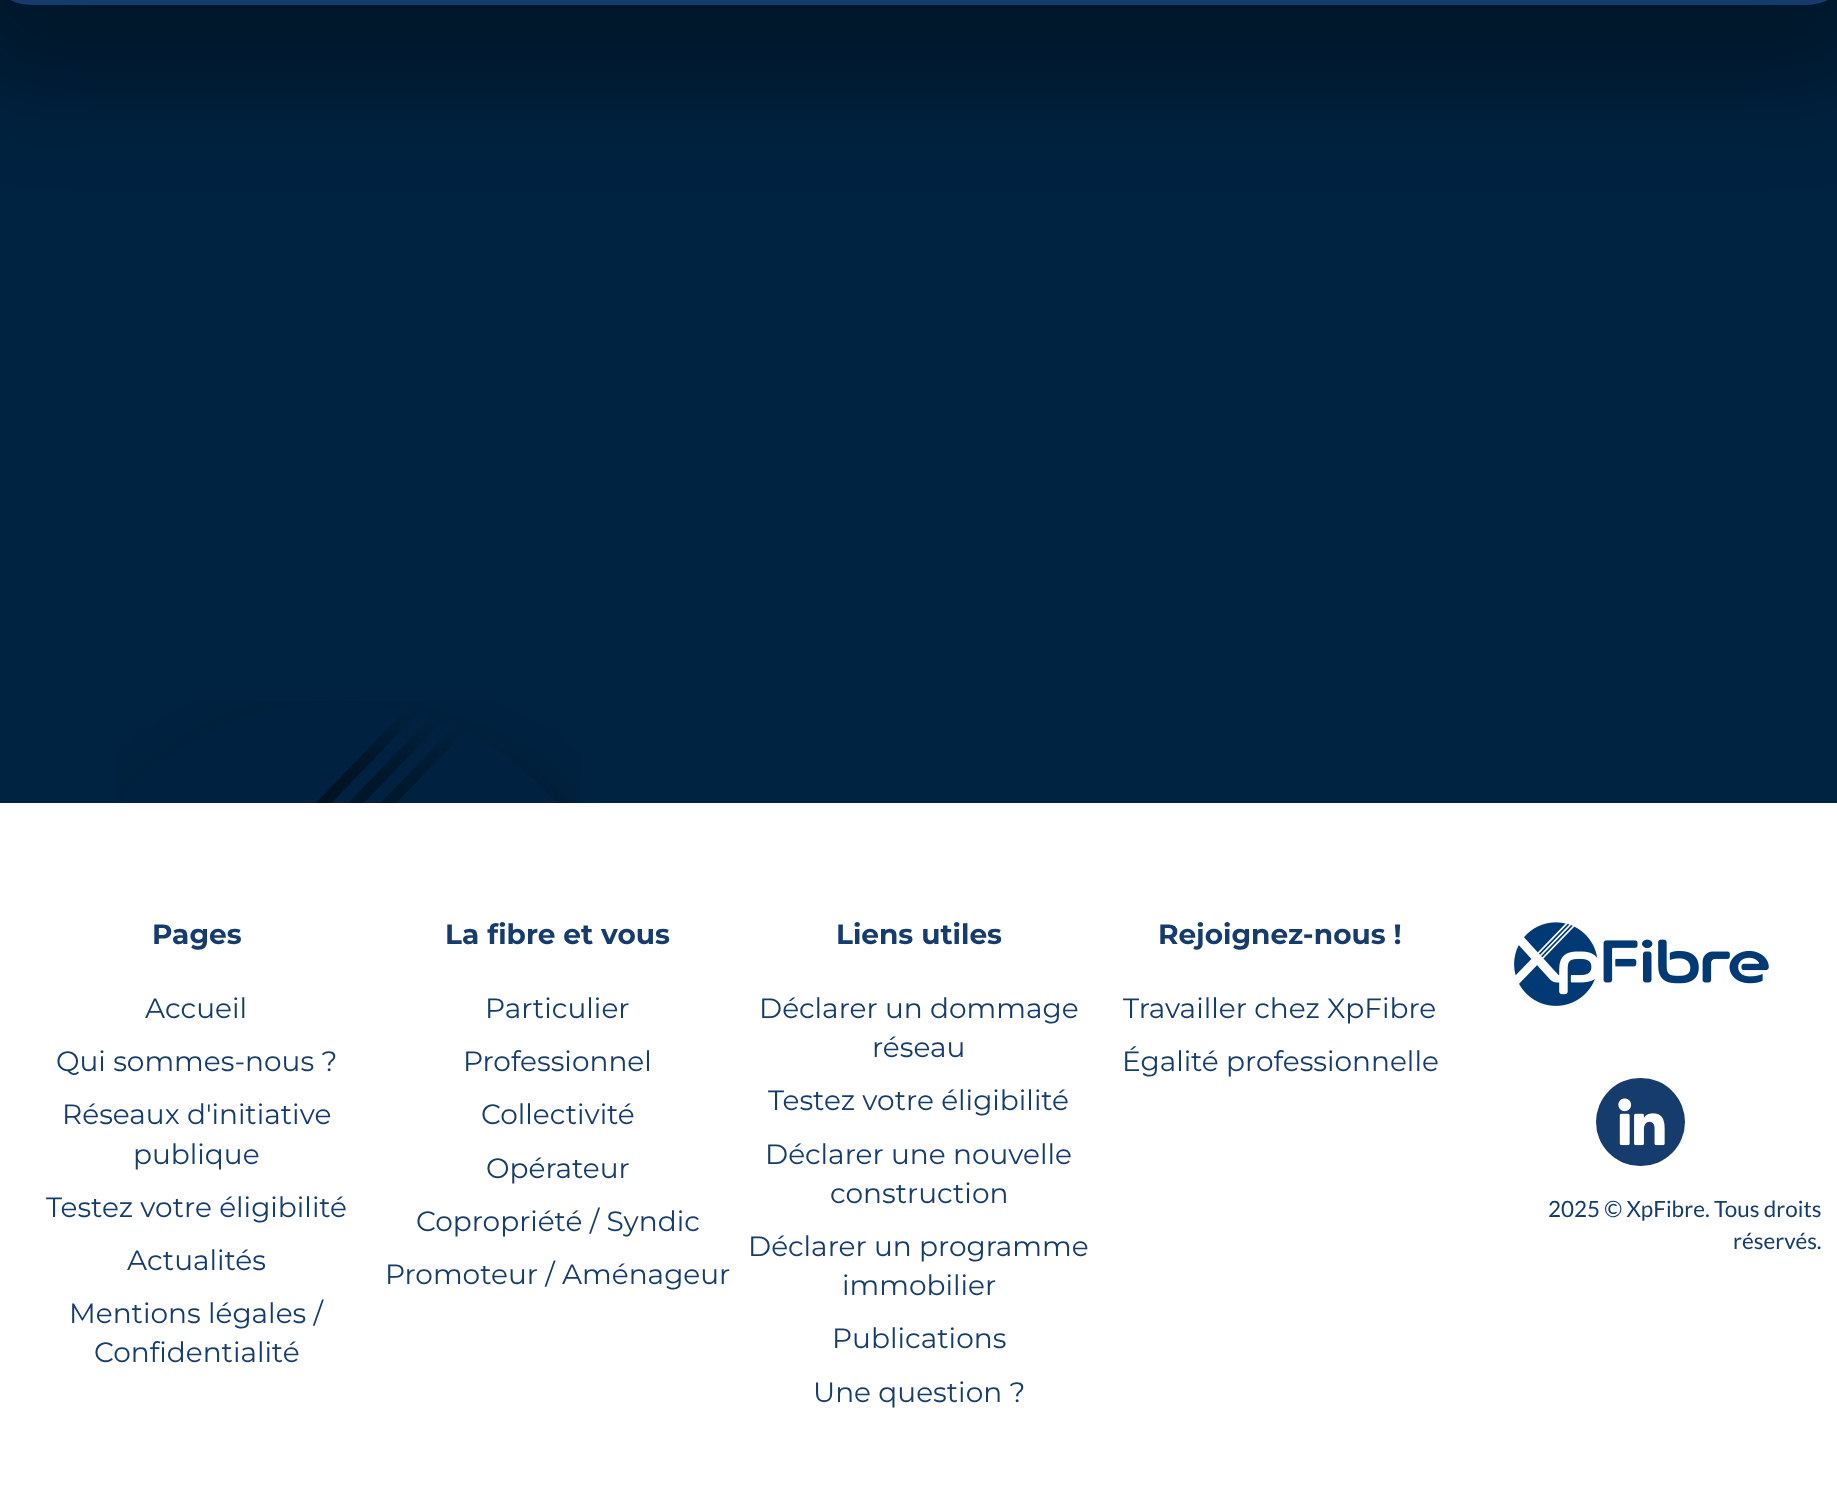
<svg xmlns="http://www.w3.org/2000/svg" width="1837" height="1497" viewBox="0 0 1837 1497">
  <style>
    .t1 { font: bold 28px Montserrat; fill: #163b6d; }
    .t2 { font: 28px Montserrat; fill: #163b6d; }
    .t3 { font: 22.4px Lato; fill: #163b6d; }
  </style>
  <rect width="100%" height="100%" fill="#fff"/>
  <rect x="0" y="0" width="1837" height="803" fill="#002341"/>
  <image x="117" y="701" width="465" height="102" href="images/1.png"/>
  <rect x="-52" y="-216" width="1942" height="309" rx="84" fill="#00000054" filter="blur(44px)"/>
  <rect x="0" y="-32" width="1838" height="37" rx="32" fill="#163b6d"/>
  <text x="152" y="944" class="t1">Pages</text>
  <text x="145" y="1018" class="t2">Accueil</text>
  <text x="56" y="1071" class="t2">Qui sommes-nous ?</text>
  <text x="62" y="1124" class="t2">Réseaux d'initiative</text>
  <text x="133" y="1164" class="t2">publique</text>
  <text x="46" y="1217" class="t2">Testez votre éligibilité</text>
  <text x="127" y="1270" class="t2">Actualités</text>
  <text x="69" y="1323" class="t2">Mentions légales /</text>
  <text x="94" y="1362" class="t2">Confidentialité</text>
  <text x="445" y="944" class="t1">La fibre et vous</text>
  <text x="485" y="1018" class="t2">Particulier</text>
  <text x="463" y="1071" class="t2">Professionnel</text>
  <text x="481" y="1124" class="t2">Collectivité</text>
  <text x="486" y="1178" class="t2">Opérateur</text>
  <text x="416" y="1231" class="t2">Copropriété / Syndic</text>
  <text x="385" y="1284" class="t2">Promoteur / Aménageur</text>
  <text x="836" y="944" class="t1">Liens utiles</text>
  <text x="759" y="1018" class="t2">Déclarer un dommage</text>
  <text x="872" y="1057" class="t2">réseau</text>
  <text x="768" y="1110" class="t2">Testez votre éligibilité</text>
  <text x="765" y="1164" class="t2">Déclarer une nouvelle</text>
  <text x="830" y="1203" class="t2">construction</text>
  <text x="748" y="1256" class="t2">Déclarer un programme</text>
  <text x="842" y="1295" class="t2">immobilier</text>
  <text x="832" y="1348" class="t2">Publications</text>
  <text x="813" y="1402" class="t2">Une question ?</text>
  <text x="1158" y="944" class="t1">Rejoignez-nous !</text>
  <text x="1123" y="1018" class="t2">Travailler chez XpFibre</text>
  <text x="1122" y="1071" class="t2">Égalité professionnelle</text>
  <image x="1514" y="922" width="255" height="84" href="images/2.png"/>
  <rect x="1596" y="1078" width="89" height="88" rx="44" fill="#163b6d"/>
  <image x="1618" y="1098" width="47" height="48" href="images/3.png"/>
  <text x="1548" y="1217" class="t3">2025 © XpFibre. Tous droits</text>
  <text x="1733" y="1249" class="t3">réservés.</text>
</svg>
